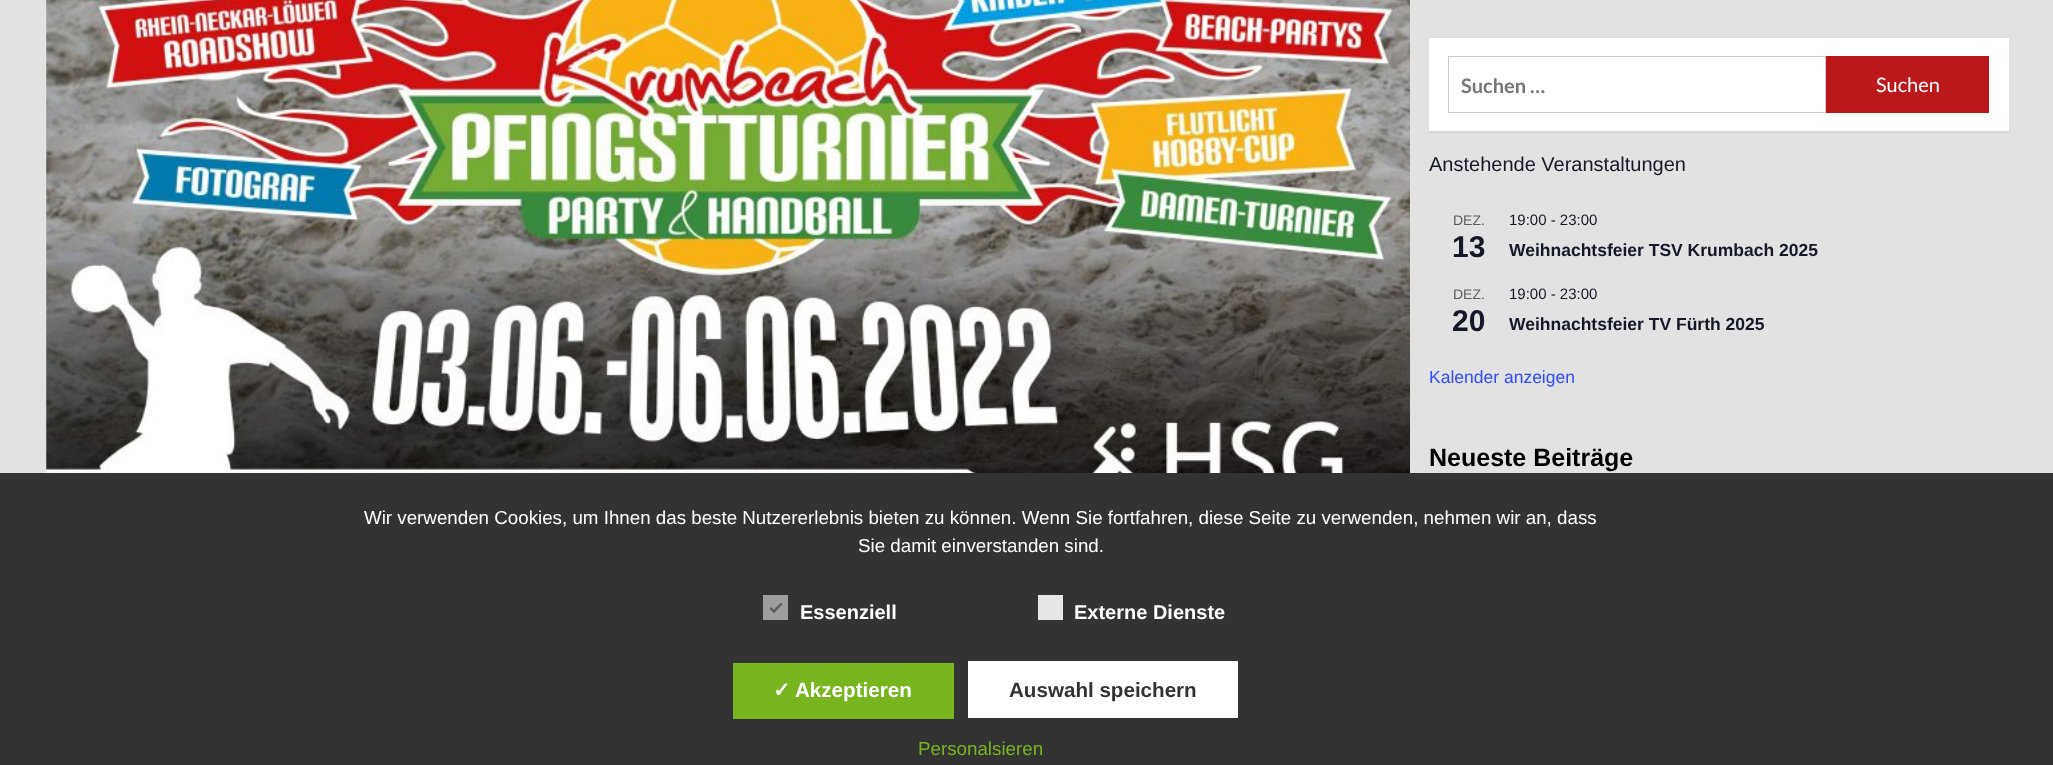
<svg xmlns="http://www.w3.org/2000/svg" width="2053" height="765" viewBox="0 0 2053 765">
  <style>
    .t1 { font: bold 20px Lato; fill: #757575; }
    .t2 { font: 20px Lato; fill: #fff; }
    .t3 { font: 20px Liberation Sans; fill: #141827; }
    .t4 { font: 14px Liberation Sans; fill: #5d5d5d; }
    .t5 { font: bold 30px Liberation Sans; fill: #141827; }
    .t6 { font: 15px Liberation Sans; fill: #141827; }
    .t7 { font: bold 17.5px Liberation Sans; fill: #141827; }
    .t8 { font: 17.5px Liberation Sans; fill: #334aff; }
    .t9 { font: bold 25px Liberation Sans; fill: #000; }
    .t10 { font: 18.75px Liberation Sans; fill: #fff; }
    .t11 { font: bold 20px Liberation Sans; fill: #fff; }
    .t12 { font: bold 20.6px DejaVu Sans; fill: #fff; }
    .t13 { font: bold 20.6px Liberation Sans; fill: #fff; }
    .t14 { font: bold 20.6px Liberation Sans; fill: #333; }
    .t15 { font: 18.75px Liberation Sans; fill: #79b51f; }
  </style>
  <rect width="100%" height="100%" fill="#e2e2e2"/>
  <image x="46" y="0" width="1364" height="473" href="images/1.png"/>
  <rect x="1429" y="39" width="580" height="94" fill="#0000000d" filter="blur(1px)"/>
  <rect x="1429" y="38" width="580" height="93" fill="#fff"/>
  <rect x="1448.5" y="56.5" width="377" height="56" fill="none" stroke="#ccc"/>
  <text x="1461" y="93" class="t1">Suchen …</text>
  <rect x="1826" y="56" width="163" height="57" fill="#bb1919"/>
  <text x="1876" y="92" class="t2">Suchen</text>
  <text x="1429" y="171" class="t3">Anstehende Veranstaltungen</text>
  <text x="1453" y="225" class="t4">DEZ.</text>
  <text x="1452" y="257" class="t5">13</text>
  <text x="1509" y="225" class="t6">19:00 - 23:00</text>
  <text x="1509" y="256" class="t7">Weihnachtsfeier TSV Krumbach 2025</text>
  <text x="1453" y="299" class="t4">DEZ.</text>
  <text x="1452" y="331" class="t5">20</text>
  <text x="1509" y="299" class="t6">19:00 - 23:00</text>
  <text x="1509" y="330" class="t7">Weihnachtsfeier TV Fürth 2025</text>
  <text x="1429" y="383" class="t8">Kalender anzeigen</text>
  <text x="1429" y="466" class="t9">Neueste Beiträge</text>
  <rect x="0" y="473" width="2053" height="292" fill="#333"/>
  <text x="364" y="524" class="t10">Wir verwenden Cookies, um Ihnen das beste Nutzererlebnis bieten zu können. Wenn Sie fortfahren, diese Seite zu verwenden, nehmen wir an, dass</text>
  <text x="858" y="552" class="t10">Sie damit einverstanden sind.</text>
  <rect x="763" y="595" width="25" height="25" fill="#9e9e9e"/>
  <path d="M781 602.5L782.5 604.5L774 613L772 611.5Z" fill="#5e5e5e"/>
  <path d="M771 607L775.5 611.5L774 613L769.5 609Z" fill="#5e5e5e"/>
  <text x="800" y="619" class="t11">Essenziell</text>
  <rect x="1038" y="595" width="25" height="25" fill="#e6e6e6"/>
  <text x="1074" y="619" class="t11">Externe Dienste</text>
  <rect x="733" y="663" width="221" height="56" fill="#79b51f"/>
  <text x="773" y="697" class="t12">✓</text>
  <text x="795" y="697" class="t13">Akzeptieren</text>
  <rect x="968" y="661" width="270" height="57" fill="#fff"/>
  <text x="1009" y="697" class="t14">Auswahl speichern</text>
  <text x="918" y="755" class="t15">Personalsieren</text>
</svg>
